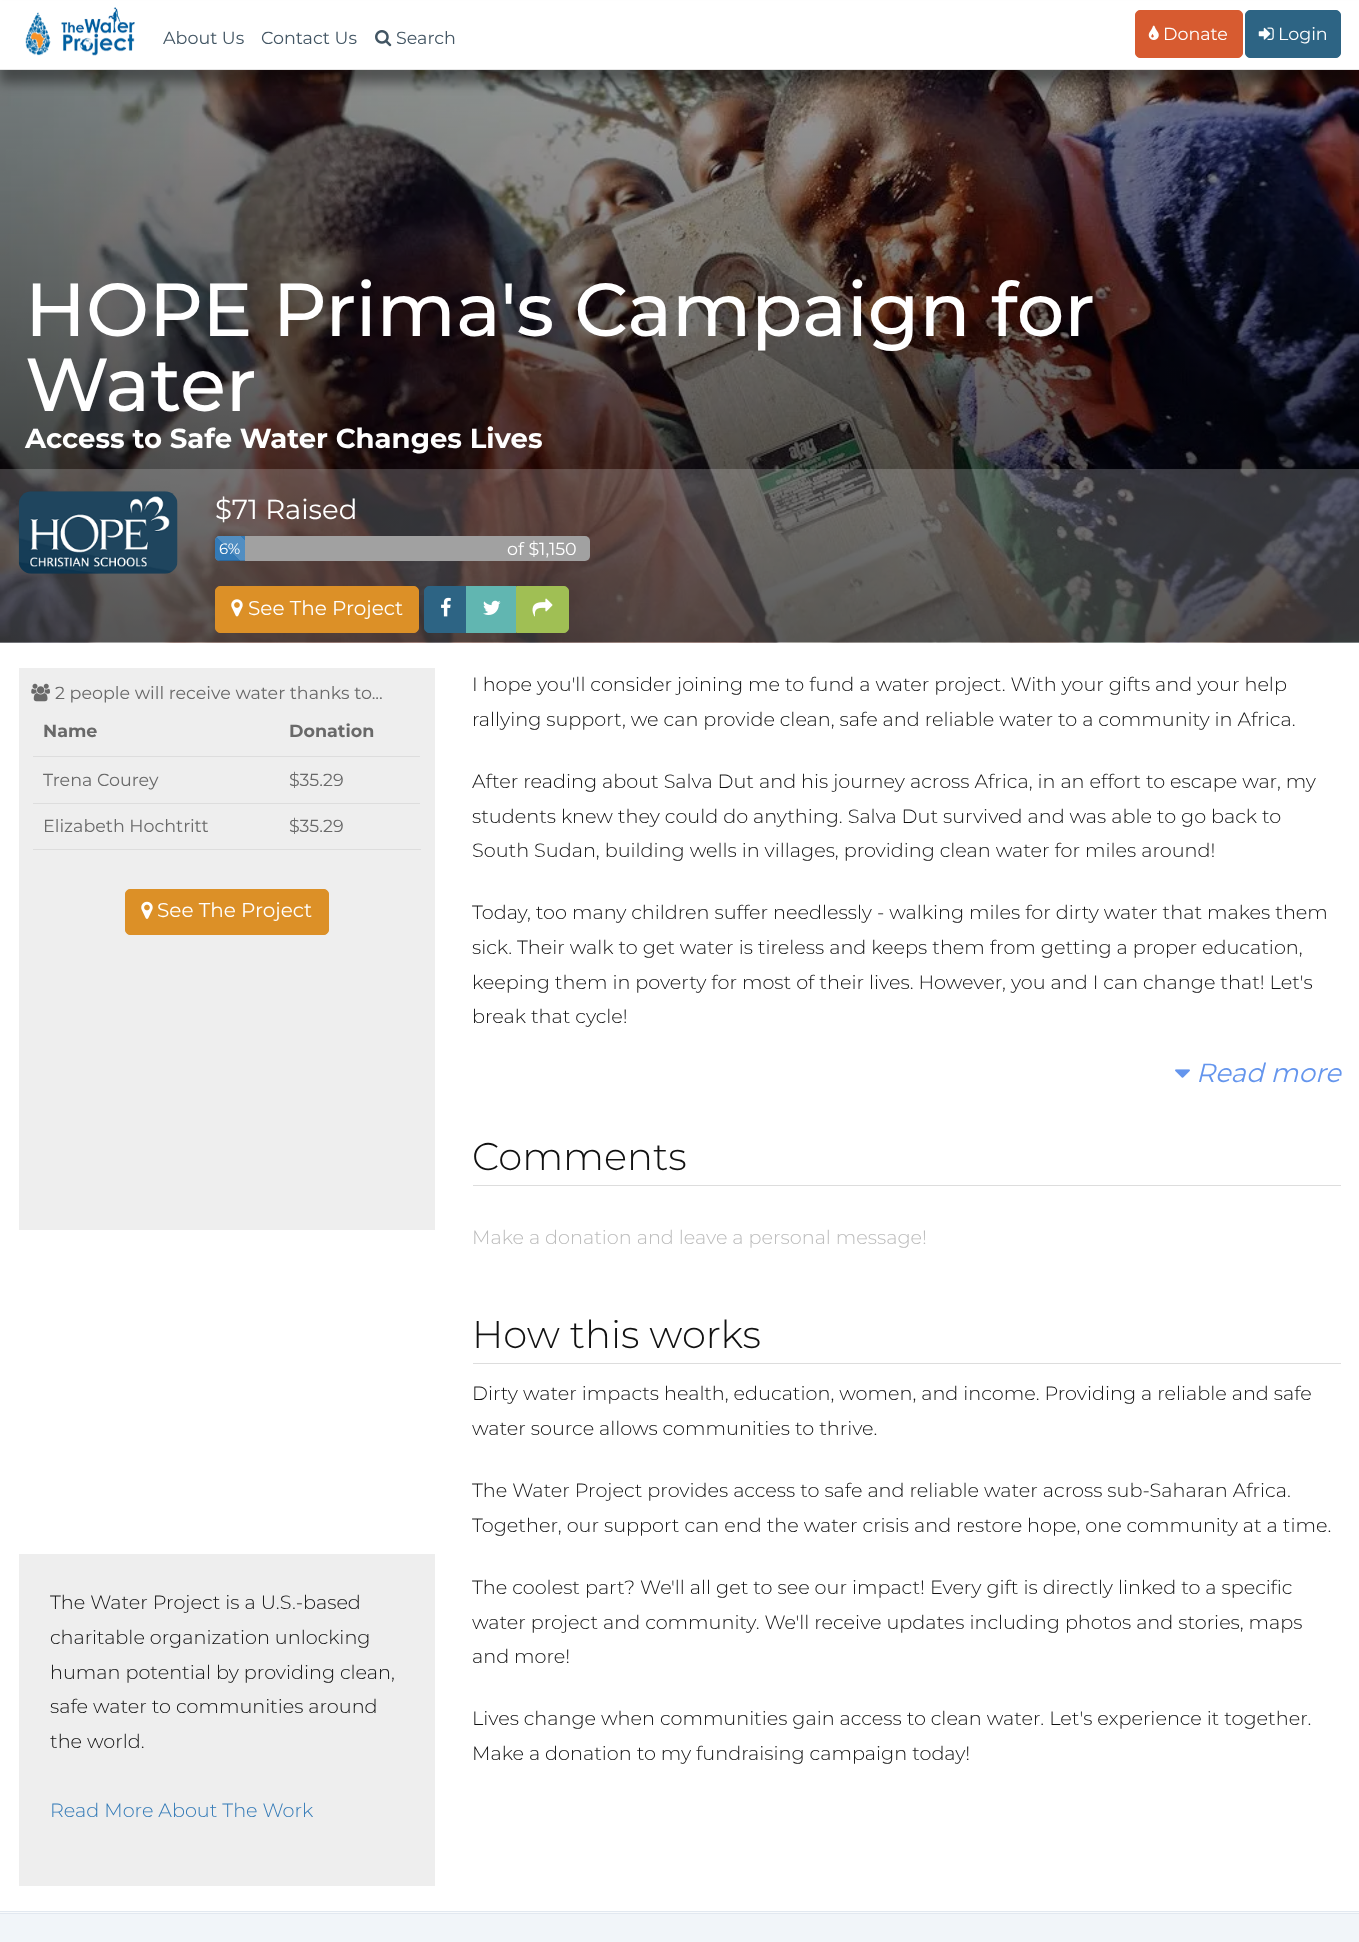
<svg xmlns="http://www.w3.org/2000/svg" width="1359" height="1942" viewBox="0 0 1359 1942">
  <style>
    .t1 { font: 17.5px Montserrat; fill: #425563; }
    .t2 { font: 17.5px Montserrat; fill: #fff; }
    .t3 { font: 500 75px Montserrat; fill: #fff; }
    .t4 { font: bold 27.5px Montserrat; fill: #fff; }
    .t5 { font: 27.5px Montserrat; fill: #fff; }
    .t6 { font: 15px Montserrat; fill: #fff; }
    .t7 { font: 20px Montserrat; fill: #fff; }
    .t8 { font: 17.5px Montserrat; fill: #696969; }
    .t9 { font: bold 17.5px Montserrat; fill: #696969; }
    .t10 { font: 300 19.25px Montserrat; fill: #111; }
    .t11 { font: italic 26.25px Montserrat; fill: #6495ed; }
    .t12 { font: 300 38.5px Montserrat; fill: #111; }
    .t13 { font: 300 19.25px Montserrat; fill: #bbb; }
    .t14 { font: 300 19.25px Montserrat; fill: #337ab7; }
  </style>
  <defs>
    <linearGradient id="g1" gradientUnits="userSpaceOnUse" x1="215" y1="586" x2="265" y2="536"><stop offset="0.25" stop-color="#fff" stop-opacity="0.15"/><stop offset="0.25" stop-color="#fff" stop-opacity="0"/><stop offset="0.5" stop-color="#fff" stop-opacity="0"/><stop offset="0.5" stop-color="#fff" stop-opacity="0.15"/><stop offset="0.75" stop-color="#fff" stop-opacity="0.15"/><stop offset="0.75" stop-color="#fff" stop-opacity="0"/><stop offset="1" stop-color="#000" stop-opacity="0"/></linearGradient>
    <clipPath id="clip1"><rect x="215" y="536" width="375" height="25" rx="5"/></clipPath>
  </defs>
  <rect width="100%" height="100%" fill="#fff"/>
  <image x="0" y="70" width="1359" height="573" href="images/5.png"/>
  <rect x="0" y="13" width="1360" height="70" fill="#00000066" filter="blur(6px)"/>
  <rect x="0" y="1" width="1359" height="68" fill="#fff"/>
  <rect x="0" y="69" width="1359" height="1" fill="#e7e7e7"/>
  <image x="25" y="7" width="110" height="49" href="images/1.png"/>
  <text x="163" y="44" class="t1">About Us</text>
  <text x="261" y="44" class="t1">Contact Us</text>
  <image x="375" y="30" width="17" height="17" href="images/2.png"/>
  <text x="396" y="44" class="t1">Search</text>
  <rect x="1135.5" y="10.5" width="107" height="47" rx="4.5" fill="#d75b30" stroke="#d75b30"/>
  <image x="1148" y="25" width="11" height="15" href="images/3.png"/>
  <text x="1163" y="40" class="t2">Donate</text>
  <rect x="1245.5" y="10.5" width="95" height="47" rx="4.5" fill="#2d6484" stroke="#2d6484"/>
  <image x="1258" y="27" width="16" height="13" href="images/4.png"/>
  <text x="1278" y="40" class="t2">Login</text>
  <text x="25" y="336" class="t3">HOPE Prima's Campaign for</text>
  <text x="25" y="411" class="t3">Water</text>
  <text x="25" y="448" class="t4">Access to Safe Water Changes Lives</text>
  <rect x="0" y="469" width="1359" height="174" fill="#ffffff33"/>
  <image x="18" y="491" width="160" height="83" href="images/6.png"/>
  <text x="215" y="519" class="t5">$71 Raised</text>
  <rect x="215" y="536" width="375" height="25" rx="5" fill="#a1a1a1"/>
  <path d="M220 536H245V561H220C217 561 215 559 215 556V541C215 538 217 536 220 536Z" fill="#337ab7"/>
  <path d="M220 536H245V561H220C217 561 215 559 215 556V541C215 538 217 536 220 536Z" fill="url(#g1)"/>
  <g clip-path="url(#clip1)">
    <rect x="215" y="560" width="30" height="1" fill="#00000026"/>
  </g>
  <text x="219" y="554" class="t6">6%</text>
  <text x="507" y="555" class="t2">of $1,150</text>
  <rect x="215.5" y="586.5" width="203" height="46" rx="4.5" fill="#dc9027" stroke="#dc9027"/>
  <image x="231" y="599" width="12" height="18" href="images/7.png"/>
  <text x="248" y="615" class="t7">See The Project</text>
  <path d="M429 586.5H467.5V632.5H429C426.5 632.5 424.5 630.5 424.5 628V591C424.5 588.5 426.5 586.5 429 586.5Z" fill="#2d6484" stroke="#2d6484"/>
  <image x="441" y="597" width="10" height="20" href="images/8.png"/>
  <rect x="466" y="586" width="50" height="47" fill="#61b6b1"/>
  <image x="483" y="600" width="18" height="15" href="images/9.png"/>
  <path d="M516.5 586.5H564C566.5 586.5 568.5 588.5 568.5 591V628C568.5 630.5 566.5 632.5 564 632.5H516.5Z" fill="#a0bf54" stroke="#a0bf54"/>
  <image x="532" y="598" width="21" height="19" href="images/10.png"/>
  <rect x="19" y="668" width="416" height="562" fill="#eee"/>
  <image x="31" y="683" width="19" height="19" href="images/11.png"/>
  <text x="55" y="699" class="t8">2 people will receive water thanks to...</text>
  <rect x="33" y="849" width="388" height="1" fill="#ddd"/>
  <text x="43" y="737" class="t9">Name</text>
  <rect x="33" y="756" width="387" height="1" fill="#ddd"/>
  <text x="289" y="737" class="t9">Donation</text>
  <text x="43" y="786" class="t8">Trena Courey</text>
  <text x="289" y="786" class="t8">$35.29</text>
  <text x="43" y="832" class="t8">Elizabeth Hochtritt</text>
  <rect x="33" y="803" width="387" height="1" fill="#ddd"/>
  <text x="289" y="832" class="t8">$35.29</text>
  <rect x="125.5" y="889.5" width="203" height="45" rx="4.5" fill="#dc9027" stroke="#dc9027"/>
  <image x="141" y="901" width="12" height="18" href="images/12.png"/>
  <text x="157" y="917" class="t7">See The Project</text>
  <text x="472" y="691" class="t10">I hope you'll consider joining me to fund a water project. With your gifts and your help</text>
  <text x="472" y="726" class="t10">rallying support, we can provide clean, safe and reliable water to a community in Africa.</text>
  <text x="472" y="788" class="t10">After reading about Salva Dut and his journey across Africa, in an effort to escape war, my</text>
  <text x="472" y="823" class="t10">students knew they could do anything. Salva Dut survived and was able to go back to</text>
  <text x="472" y="857" class="t10">South Sudan, building wells in villages, providing clean water for miles around!</text>
  <text x="472" y="919" class="t10">Today, too many children suffer needlessly - walking miles for dirty water that makes them</text>
  <text x="472" y="954" class="t10">sick. Their walk to get water is tireless and keeps them from getting a proper education,</text>
  <text x="472" y="989" class="t10">keeping them in poverty for most of their lives. However, you and I can change that! Let's</text>
  <text x="472" y="1023" class="t10">break that cycle!</text>
  <image x="1175" y="1069" width="15" height="9" href="images/13.png"/>
  <text x="1196" y="1082" class="t11">Read more</text>
  <rect x="473" y="1185" width="868" height="1" fill="#ddd"/>
  <text x="472" y="1170" class="t12">Comments</text>
  <text x="472" y="1244" class="t13">Make a donation and leave a personal message!</text>
  <rect x="19" y="1554" width="416" height="332" fill="#eee"/>
  <text x="50" y="1609" class="t10">The Water Project is a U.S.-based</text>
  <text x="50" y="1644" class="t10">charitable organization unlocking</text>
  <text x="50" y="1679" class="t10">human potential by providing clean,</text>
  <text x="50" y="1713" class="t10">safe water to communities around</text>
  <text x="50" y="1748" class="t10">the world.</text>
  <text x="50" y="1817" class="t14">Read More About The Work</text>
  <rect x="473" y="1363" width="868" height="1" fill="#ddd"/>
  <text x="472" y="1348" class="t12">How this works</text>
  <text x="472" y="1400" class="t10">Dirty water impacts health, education, women, and income. Providing a reliable and safe</text>
  <text x="472" y="1435" class="t10">water source allows communities to thrive.</text>
  <text x="472" y="1497" class="t10">The Water Project provides access to safe and reliable water across sub-Saharan Africa.</text>
  <text x="472" y="1532" class="t10">Together, our support can end the water crisis and restore hope, one community at a time.</text>
  <text x="472" y="1594" class="t10">The coolest part? We'll all get to see our impact! Every gift is directly linked to a specific</text>
  <text x="472" y="1629" class="t10">water project and community. We'll receive updates including photos and stories, maps</text>
  <text x="472" y="1663" class="t10">and more!</text>
  <text x="472" y="1725" class="t10">Lives change when communities gain access to clean water. Let's experience it together.</text>
  <text x="472" y="1760" class="t10">Make a donation to my fundraising campaign today!</text>
  <rect x="0" y="1912" width="1359" height="1" fill="#f8fafc"/>
  <rect x="0" y="1911" width="1359" height="1" fill="#e2e8f0"/>
  <rect x="0" y="1914" width="1359" height="28" fill="#f1f5f9"/>
  <rect x="0" y="1913" width="1359" height="1" fill="#e2e8f0"/>
</svg>
